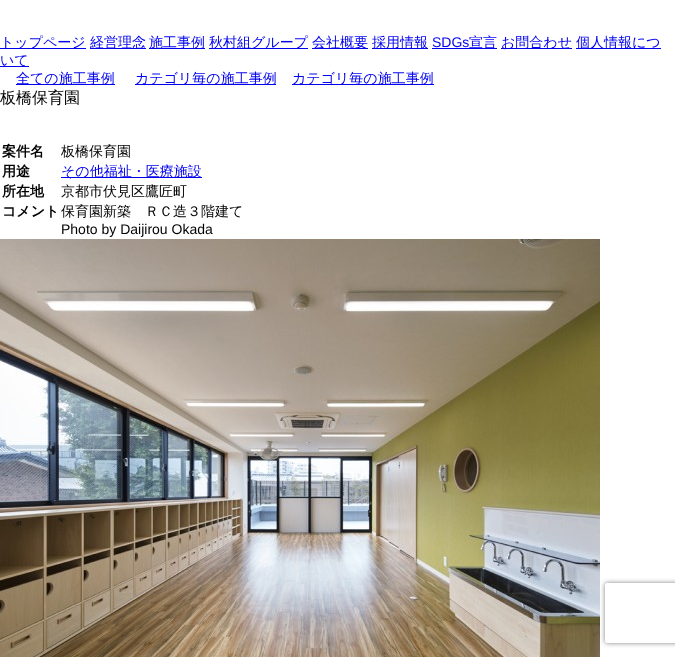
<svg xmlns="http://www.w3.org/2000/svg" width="675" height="657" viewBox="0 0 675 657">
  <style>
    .t1 { font: 500 14px WenQuanYi Zen Hei; fill: #00e; }
    .t2 { font: 14px Liberation Sans; fill: #00e; }
    .t3 { font: 500 16px WenQuanYi Zen Hei; fill: #000; }
    .t4 { font: bold 14px WenQuanYi Zen Hei; fill: #000; }
    .t5 { font: 500 14px WenQuanYi Zen Hei; fill: #000; }
    .t6 { font: 14px Liberation Sans; fill: #000; }
  </style>
  <defs>
    <clipPath id="clip1"><path d="M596 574H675V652H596ZM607 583H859C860 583 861 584 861 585V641C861 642 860 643 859 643H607C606 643 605 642 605 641V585C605 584 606 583 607 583Z" clip-rule="evenodd"/></clipPath>
  </defs>
  <rect width="100%" height="100%" fill="#fff"/>
  <rect x="0" y="48" width="86" height="1" fill="#00e"/>
  <text x="0" y="47" class="t1">トップページ</text>
  <rect x="90" y="48" width="56" height="1" fill="#00e"/>
  <text x="90" y="47" class="t1">経営理念</text>
  <rect x="149" y="48" width="56" height="1" fill="#00e"/>
  <text x="149" y="47" class="t1">施工事例</text>
  <rect x="209" y="48" width="99" height="1" fill="#00e"/>
  <text x="209" y="47" class="t1">秋村組グループ</text>
  <rect x="312" y="48" width="56" height="1" fill="#00e"/>
  <text x="312" y="47" class="t1">会社概要</text>
  <rect x="372" y="48" width="56" height="1" fill="#00e"/>
  <text x="372" y="47" class="t1">採用情報</text>
  <text x="432" y="47" class="t2">SDGs</text>
  <rect x="432" y="48" width="65" height="1" fill="#00e"/>
  <text x="469" y="47" class="t1">宣言</text>
  <rect x="501" y="48" width="71" height="1" fill="#00e"/>
  <text x="501" y="47" class="t1">お問合わせ</text>
  <rect x="576" y="48" width="85" height="1" fill="#00e"/>
  <text x="576" y="47" class="t1">個人情報につ</text>
  <rect x="0" y="66" width="29" height="1" fill="#00e"/>
  <text x="0" y="65" class="t1">いて</text>
  <rect x="16" y="84" width="99" height="1" fill="#00e"/>
  <text x="16" y="83" class="t1">全ての施工事例</text>
  <rect x="135" y="84" width="141" height="1" fill="#00e"/>
  <text x="135" y="83" class="t1">カテゴリ毎の施工事例</text>
  <rect x="292" y="84" width="142" height="1" fill="#00e"/>
  <text x="292" y="83" class="t1">カテゴリ毎の施工事例</text>
  <text x="0" y="103" class="t3">板橋保育園</text>
  <text x="2" y="156" class="t4">案件名</text>
  <text x="61" y="156" class="t5">板橋保育園</text>
  <text x="2" y="176" class="t4">用途</text>
  <rect x="61" y="177" width="141" height="1" fill="#00e"/>
  <text x="61" y="176" class="t1">その他福祉・医療施設</text>
  <text x="2" y="196" class="t4">所在地</text>
  <text x="61" y="196" class="t5">京都市伏見区鷹匠町</text>
  <text x="2" y="216" class="t4">コメント</text>
  <text x="61" y="216" class="t5">保育園新築　ＲＣ造３階建て</text>
  <text x="61" y="234" class="t6">Photo by Daijirou Okada</text>
  <image x="0" y="239" width="600" height="418" href="images/1.png"/>
  <g clip-path="url(#clip1)">
    <rect x="605" y="583" width="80" height="60" rx="2" fill="#808080" filter="blur(2.5px)"/>
  </g>
</svg>
